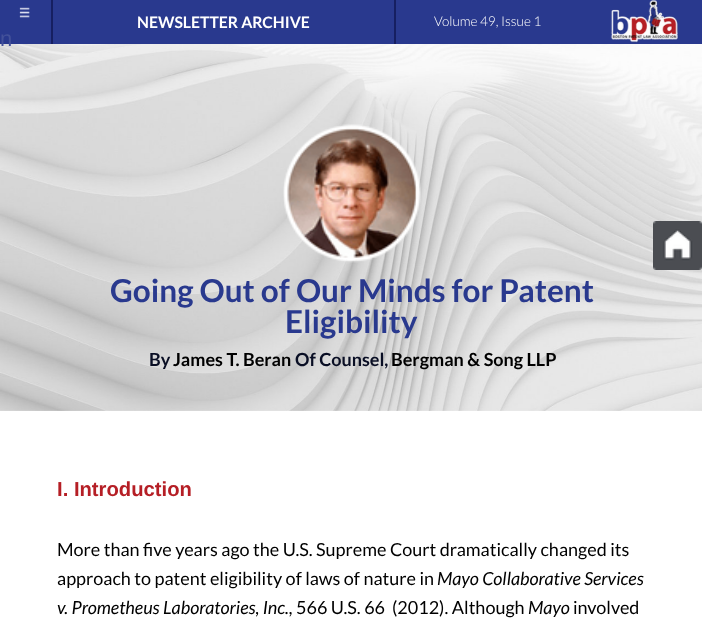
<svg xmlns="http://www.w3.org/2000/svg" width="702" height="632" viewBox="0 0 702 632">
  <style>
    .t1 { font: bold 15.75px Lato; fill: #fff; }
    .t2 { font: 300 13.5px Lato; fill: #fff; }
    .t3 { font: 22px Liberation Sans; fill: #43519a; }
    .t4 { font: bold 31.5px Lato; fill: #29398e; }
    .t5 { font: bold 18px Lato; fill: #090e24; }
    .t6 { font: bold 18px Lato; fill: #000; }
    .t7 { font: bold 20.25px Liberation Sans; fill: #b51e25; }
    .t8 { font: 18px Lato; fill: #000; }
    .t9 { font: italic 18px Lato; fill: #000; }
  </style>
  <rect width="100%" height="100%" fill="#fff"/>
  <rect x="0" y="0" width="702" height="44" fill="#29398e"/>
  <image x="19" y="7" width="11" height="11" href="images/1.png"/>
  <rect x="394" y="0" width="2" height="44" fill="#161f61"/>
  <rect x="51" y="0" width="2" height="44" fill="#161f61"/>
  <text x="137" y="28" class="t1">NEWSLETTER ARCHIVE</text>
  <text x="434" y="26" class="t2">Volume 49, Issue 1</text>
  <image x="610" y="0" width="69" height="43" href="images/2.png"/>
  <image x="0" y="44" width="702" height="367" href="images/4.png"/>
  <text x="0" y="46" class="t3">n</text>
  <image x="653" y="221" width="49" height="49" href="images/3.png"/>
  <image x="283" y="124" width="138" height="139" href="images/5.png"/>
  <text x="110" y="302" class="t4">Going Out of Our Minds for Patent</text>
  <text x="285" y="333" class="t4">Eligibility</text>
  <text x="149" y="366" class="t5">By</text>
  <text x="173" y="366" class="t6">James T. Beran</text>
  <text x="295" y="366" class="t5">Of Counsel,</text>
  <text x="391" y="366" class="t6">Bergman &amp; Song LLP</text>
  <text x="57" y="496" class="t7">I. Introduction</text>
  <text x="57" y="556" class="t8">More than five years ago the U.S. Supreme Court dramatically changed its</text>
  <text x="57" y="585" class="t8">approach to patent eligibility of laws of nature in</text>
  <text x="437" y="585" class="t9">Mayo Collaborative Services</text>
  <text x="57" y="614" class="t9">v. Prometheus Laboratories, Inc.,</text>
  <text x="296" y="614" class="t8" xml:space="preserve">566 U.S. 66  (2012). Although</text>
  <text x="528" y="614" class="t9">Mayo</text>
  <text x="573" y="614" class="t8">involved</text>
</svg>
